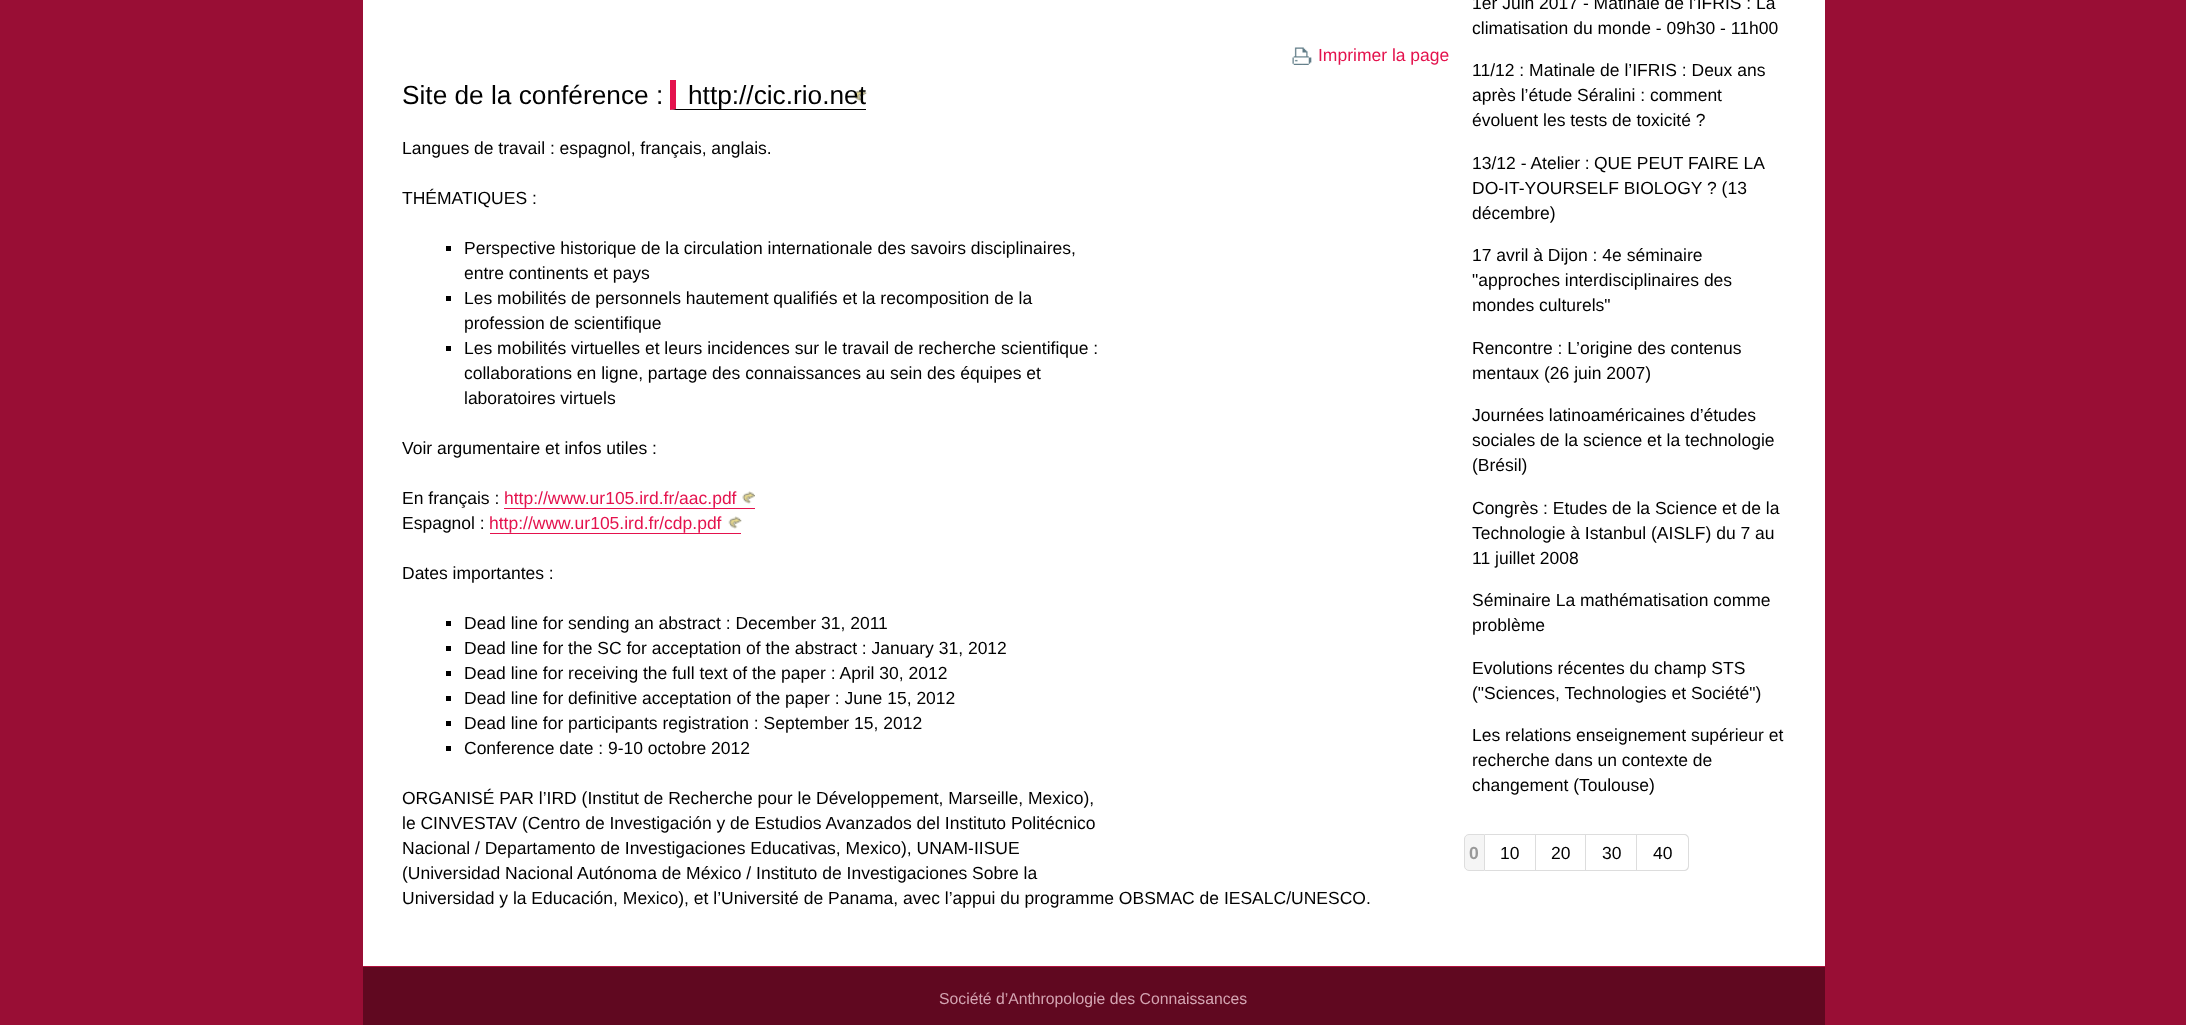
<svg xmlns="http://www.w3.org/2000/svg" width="2186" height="1025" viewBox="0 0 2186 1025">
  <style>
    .t1 { font: 17.5px Liberation Sans; fill: #e4124d; }
    .t2 { font: 26.25px Liberation Sans; fill: #000; }
    .t3 { font: 17.5px Liberation Sans; fill: #000; }
    .t4 { font: bold 17.5px Liberation Sans; fill: #999; }
    .t5 { font: 15.75px Liberation Sans; fill: #d4a5b2; }
  </style>
  <rect width="100%" height="100%" fill="#990e35"/>
  <rect x="363" y="0" width="1462" height="966" fill="#fff"/>
  <image x="1292" y="47" width="20" height="18" href="images/1.png"/>
  <text x="1318" y="61" class="t1">Imprimer la page</text>
  <text x="402" y="104" class="t2">Site de la conférence :</text>
  <path d="M866 110H670L676 109H866Z" fill="#000"/>
  <image x="853" y="88" width="14" height="14" href="images/2.png"/>
  <text x="688" y="104" class="t2">http://cic.rio.net</text>
  <path d="M670 110V80H676V109Z" fill="#e4124d"/>
  <text x="402" y="154" class="t3">Langues de travail : espagnol, français, anglais.</text>
  <text x="402" y="204" class="t3">THÉMATIQUES :</text>
  <rect x="446" y="246" width="5" height="5" fill="#000"/>
  <text x="464" y="254" class="t3">Perspective historique de la circulation internationale des savoirs disciplinaires,</text>
  <text x="464" y="279" class="t3">entre continents et pays</text>
  <rect x="446" y="296" width="5" height="5" fill="#000"/>
  <text x="464" y="304" class="t3">Les mobilités de personnels hautement qualifiés et la recomposition de la</text>
  <text x="464" y="329" class="t3">profession de scientifique</text>
  <rect x="446" y="346" width="5" height="5" fill="#000"/>
  <text x="464" y="354" class="t3">Les mobilités virtuelles et leurs incidences sur le travail de recherche scientifique :</text>
  <text x="464" y="379" class="t3">collaborations en ligne, partage des connaissances au sein des équipes et</text>
  <text x="464" y="404" class="t3">laboratoires virtuels</text>
  <text x="402" y="454" class="t3">Voir argumentaire et infos utiles :</text>
  <text x="402" y="504" class="t3">En français :</text>
  <text x="504" y="504" class="t1">http://www.ur105.ird.fr/aac.pdf</text>
  <rect x="504" y="508" width="251" height="1" fill="#e4124d"/>
  <image x="742" y="491" width="13" height="13" href="images/3.png"/>
  <text x="402" y="529" class="t3">Espagnol :</text>
  <text x="489" y="529" class="t1">http://www.ur105.ird.fr/cdp.pdf</text>
  <rect x="490" y="533" width="251" height="1" fill="#e4124d"/>
  <image x="728" y="516" width="14" height="13" href="images/4.png"/>
  <text x="402" y="579" class="t3">Dates importantes :</text>
  <rect x="446" y="621" width="5" height="5" fill="#000"/>
  <text x="464" y="629" class="t3">Dead line for sending an abstract : December 31, 2011</text>
  <rect x="446" y="646" width="5" height="5" fill="#000"/>
  <text x="464" y="654" class="t3">Dead line for the SC for acceptation of the abstract : January 31, 2012</text>
  <rect x="446" y="671" width="5" height="5" fill="#000"/>
  <text x="464" y="679" class="t3">Dead line for receiving the full text of the paper : April 30, 2012</text>
  <rect x="446" y="696" width="5" height="5" fill="#000"/>
  <text x="464" y="704" class="t3">Dead line for definitive acceptation of the paper : June 15, 2012</text>
  <rect x="446" y="721" width="5" height="5" fill="#000"/>
  <text x="464" y="729" class="t3">Dead line for participants registration : September 15, 2012</text>
  <rect x="446" y="746" width="5" height="5" fill="#000"/>
  <text x="464" y="754" class="t3">Conference date : 9-10 octobre 2012</text>
  <text x="402" y="804" class="t3">ORGANISÉ PAR l’IRD (Institut de Recherche pour le Développement, Marseille, Mexico),</text>
  <text x="402" y="829" class="t3">le CINVESTAV (Centro de Investigación y de Estudios Avanzados del Instituto Politécnico</text>
  <text x="402" y="854" class="t3">Nacional / Departamento de Investigaciones Educativas, Mexico), UNAM-IISUE</text>
  <text x="402" y="879" class="t3">(Universidad Nacional Autónoma de México / Instituto de Investigaciones Sobre la</text>
  <text x="402" y="904" class="t3">Universidad y la Educación, Mexico), et l’Université de Panama, avec l’appui du programme OBSMAC de IESALC/UNESCO.</text>
  <text x="1472" y="9" class="t3">1er Juin 2017 - Matinale de l’IFRIS : La</text>
  <text x="1472" y="34" class="t3">climatisation du monde - 09h30 - 11h00</text>
  <text x="1472" y="76" class="t3">11/12 : Matinale de l’IFRIS : Deux ans</text>
  <text x="1472" y="101" class="t3">après l’étude Séralini : comment</text>
  <text x="1472" y="126" class="t3">évoluent les tests de toxicité ?</text>
  <text x="1472" y="169" class="t3">13/12 - Atelier :</text>
  <text x="1594" y="169" class="t3">QUE PEUT FAIRE LA</text>
  <text x="1472" y="194" class="t3">DO-IT-YOURSELF BIOLOGY ? (13</text>
  <text x="1472" y="219" class="t3">décembre)</text>
  <text x="1472" y="261" class="t3">17 avril à Dijon : 4e séminaire</text>
  <text x="1472" y="286" class="t3">"approches interdisciplinaires des</text>
  <text x="1472" y="311" class="t3">mondes culturels"</text>
  <text x="1472" y="354" class="t3">Rencontre : L’origine des contenus</text>
  <text x="1472" y="379" class="t3">mentaux (26 juin 2007)</text>
  <text x="1472" y="421" class="t3">Journées latinoaméricaines d’études</text>
  <text x="1472" y="446" class="t3">sociales de la science et la technologie</text>
  <text x="1472" y="471" class="t3">(Brésil)</text>
  <text x="1472" y="514" class="t3">Congrès : Etudes de la Science et de la</text>
  <text x="1472" y="539" class="t3">Technologie à Istanbul (AISLF) du 7 au</text>
  <text x="1472" y="564" class="t3">11 juillet 2008</text>
  <text x="1472" y="606" class="t3">Séminaire La mathématisation comme</text>
  <text x="1472" y="631" class="t3">problème</text>
  <text x="1472" y="674" class="t3">Evolutions récentes du champ STS</text>
  <text x="1472" y="699" class="t3">("Sciences, Technologies et Société")</text>
  <text x="1472" y="741" class="t3">Les relations enseignement supérieur et</text>
  <text x="1472" y="766" class="t3">recherche dans un contexte de</text>
  <text x="1472" y="791" class="t3">changement (Toulouse)</text>
  <path d="M1469 834.5H1484.5V870.5H1469C1466.5 870.5 1464.5 868.5 1464.5 866V839C1464.5 836.5 1466.5 834.5 1469 834.5Z" fill="#f5f5f5" stroke="#ddd"/>
  <text x="1469" y="859" class="t4">0</text>
  <rect x="1485" y="834" width="153" height="1" fill="#ddd"/>
  <rect x="1535" y="834" width="1" height="37" fill="#ddd"/>
  <rect x="1485" y="870" width="51" height="1" fill="#ddd"/>
  <text x="1500" y="859" class="t3">10</text>
  <rect x="1585" y="834" width="1" height="37" fill="#ddd"/>
  <rect x="1536" y="870" width="50" height="1" fill="#ddd"/>
  <text x="1551" y="859" class="t3">20</text>
  <rect x="1636" y="834" width="1" height="37" fill="#ddd"/>
  <rect x="1586" y="870" width="52" height="1" fill="#ddd"/>
  <text x="1602" y="859" class="t3">30</text>
  <path d="M1638 834H1684C1687 834 1689 836 1689 839V866C1689 869 1687 871 1684 871H1638ZM1638 835H1684C1686 835 1688 837 1688 839V866C1688 868 1686 870 1684 870H1638Z" fill="#ddd" fill-rule="evenodd"/>
  <text x="1653" y="859" class="t3">40</text>
  <rect x="363" y="967" width="1462" height="58" fill="#600820"/>
  <rect x="363" y="966" width="1462" height="1" fill="#b0103c"/>
  <text x="939" y="1004" class="t5">Société d’Anthropologie des Connaissances</text>
</svg>
